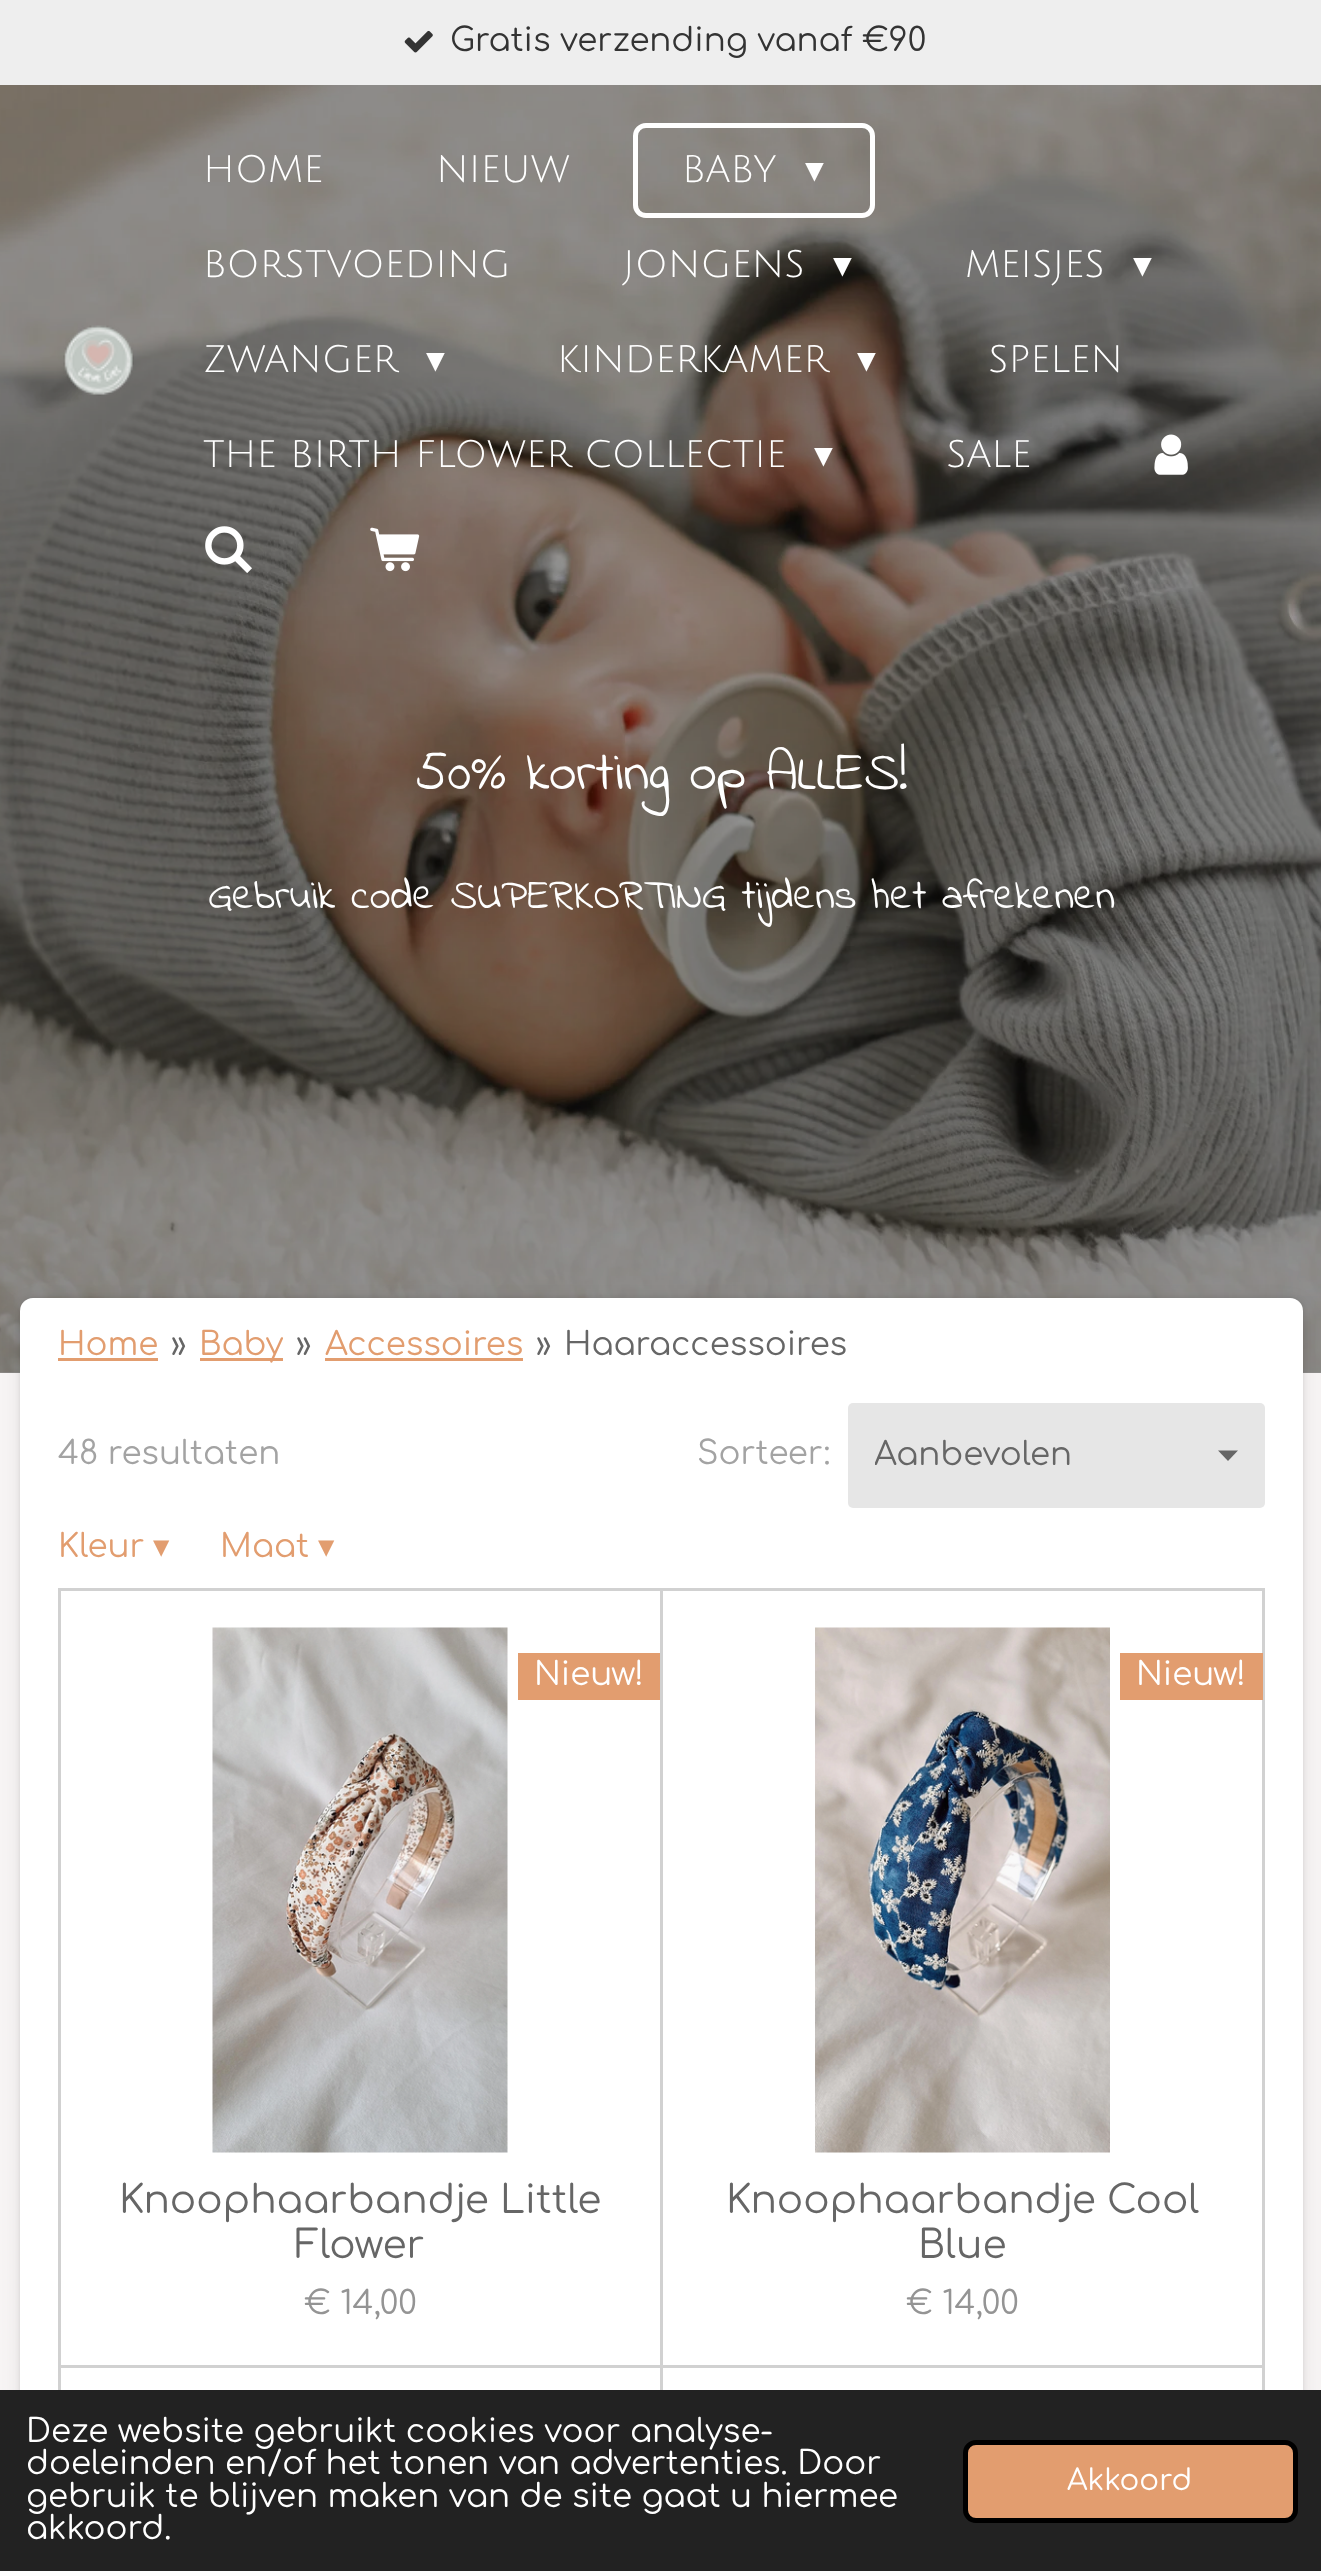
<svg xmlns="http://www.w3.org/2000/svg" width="1321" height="2571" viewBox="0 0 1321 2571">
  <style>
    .t1 { font: 32.5px Comfortaa; fill: #333; }
    .t2 { font: 37.5px Julius Sans One; fill: #fff; }
    .t3 { font: 37.5px DejaVu Sans; fill: #fff; }
    .t4 { font: 55.25px Indie Flower; fill: #fff; }
    .t5 { font: 42.25px Indie Flower; fill: #fff; }
    .t6 { font: 32.5px Comfortaa; fill: #e29d6f; }
    .t7 { font: 32.5px Comfortaa; fill: #666; }
    .t8 { font: 32.5px Comfortaa; fill: #a3a3a3; }
    .t9 { font: 32.5px DejaVu Sans; fill: #e29d6f; }
    .t10 { font: 32.5px Comfortaa; fill: #fff; }
    .t11 { font: 39px Comfortaa; fill: #666; }
    .t12 { font: 32.5px Comfortaa; fill: #949494; }
    .t13 { font: 29.25px Comfortaa; fill: #fff; }
  </style>
  <defs>
    <clipPath id="clip1"><rect x="875" y="1438" width="340" height="35"/></clipPath>
  </defs>
  <rect width="100%" height="100%" fill="#f7f4f4"/>
  <rect x="0" y="1372" width="1321" height="1" fill="#949292"/>
  <rect x="0" y="0" width="1321" height="85" fill="#eee"/>
  <image x="404" y="30" width="29" height="23" href="images/1.png"/>
  <text x="450" y="51" class="t1">Gratis verzending vanaf €90</text>
  <image x="0" y="85" width="1321" height="1288" href="images/6.png"/>
  <image x="63" y="325" width="71" height="71" href="images/2.png"/>
  <text x="203" y="182" class="t2">HOME</text>
  <text x="436" y="182" class="t2">NIEUW</text>
  <rect x="635.5" y="125.5" width="237" height="90" rx="10.5" fill="none" stroke="#fff" stroke-width="5"/>
  <text x="682" y="182" class="t2">BABY</text>
  <text x="805" y="182" class="t3">▾</text>
  <text x="203" y="277" class="t2">BORSTVOEDING</text>
  <text x="623" y="277" class="t2">JONGENS</text>
  <text x="833" y="277" class="t3">▾</text>
  <text x="965" y="277" class="t2">MEISJES</text>
  <text x="1133" y="277" class="t3">▾</text>
  <text x="203" y="372" class="t2">ZWANGER</text>
  <text x="426" y="372" class="t3">▾</text>
  <text x="557" y="372" class="t2">KINDERKAMER</text>
  <text x="857" y="372" class="t3">▾</text>
  <text x="988" y="372" class="t2">SPELEN</text>
  <text x="203" y="467" class="t2">THE BIRTH FLOWER COLLECTIE</text>
  <text x="814" y="467" class="t3">▾</text>
  <text x="946" y="467" class="t2">SALE</text>
  <image x="1154" y="434" width="34" height="41" href="images/3.png"/>
  <image x="205" y="526" width="47" height="47" href="images/4.png"/>
  <image x="370" y="527" width="50" height="45" href="images/5.png"/>
  <text x="416" y="789" class="t4">50% korting op ALLES!</text>
  <text x="208" y="908" class="t5">Gebruik code SUPERKORTING tijdens het afrekenen</text>
  <rect x="20" y="1298" width="1283" height="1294" rx="13" fill="#0000001a" filter="blur(2.5px)"/>
  <rect x="20" y="1303" width="1283" height="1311" rx="13" fill="#00000012" filter="blur(10px)"/>
  <rect x="20" y="1298" width="1283" height="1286" rx="13" fill="#fff"/>
  <text x="58" y="1355" class="t6">Home</text>
  <rect x="58" y="1358" width="100" height="3" fill="#e29d6f"/>
  <text x="171" y="1355" class="t7">»</text>
  <rect x="200" y="1358" width="83" height="3" fill="#e29d6f"/>
  <text x="199" y="1355" class="t6">Baby</text>
  <text x="296" y="1355" class="t7">»</text>
  <text x="325" y="1355" class="t6">Accessoires</text>
  <rect x="325" y="1358" width="198" height="3" fill="#e29d6f"/>
  <text x="536" y="1355" class="t7">»</text>
  <text x="564" y="1355" class="t7">Haaraccessoires</text>
  <text x="58" y="1464" class="t8">48 resultaten</text>
  <text x="697" y="1464" class="t8">Sorteer:</text>
  <rect x="848" y="1403" width="417" height="105" rx="5" fill="#e6e6e6"/>
  <path d="M1228 1461L1218 1450.5H1238Z" fill="#666"/>
  <g clip-path="url(#clip1)">
    <text x="874" y="1465" class="t7">Aanbevolen</text>
  </g>
  <text x="58" y="1557" class="t6">Kleur</text>
  <text x="153" y="1557" class="t9">▾</text>
  <text x="220" y="1557" class="t6">Maat</text>
  <text x="318" y="1557" class="t9">▾</text>
  <rect x="59.5" y="1589.5" width="602" height="777" fill="none" stroke="#d1d1d1" stroke-width="3"/>
  <image x="212" y="1627" width="296" height="526" href="images/7.png"/>
  <rect x="518" y="1653" width="142" height="47" fill="#e29d6f"/>
  <text x="534" y="1685" class="t10">Nieuw!</text>
  <text x="119" y="2213" class="t11">Knoophaarbandje Little</text>
  <text x="295" y="2258" class="t11">Flower</text>
  <text x="304" y="2314" class="t12">€ 14,00</text>
  <rect x="661.5" y="1589.5" width="602" height="777" fill="none" stroke="#d1d1d1" stroke-width="3"/>
  <image x="815" y="1627" width="295" height="526" href="images/8.png"/>
  <rect x="1120" y="1653" width="143" height="47" fill="#e29d6f"/>
  <text x="1136" y="1685" class="t10">Nieuw!</text>
  <text x="726" y="2213" class="t11">Knoophaarbandje Cool</text>
  <text x="918" y="2258" class="t11">Blue</text>
  <text x="906" y="2314" class="t12">€ 14,00</text>
  <rect x="59.5" y="2366.5" width="602" height="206" fill="none" stroke="#d1d1d1" stroke-width="3"/>
  <rect x="661.5" y="2366.5" width="602" height="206" fill="none" stroke="#d1d1d1" stroke-width="3"/>
  <rect x="0" y="2390" width="1321" height="181" fill="#222"/>
  <text x="26" y="2442" class="t10">Deze website gebruikt cookies voor analyse-</text>
  <text x="26" y="2474" class="t10">doeleinden en/of het tonen van advertenties. Door</text>
  <text x="26" y="2507" class="t10">gebruik te blijven maken van de site gaat u hiermee</text>
  <text x="26" y="2539" class="t10">akkoord.</text>
  <rect x="965.5" y="2442.5" width="330" height="78" rx="10.5" fill="#e29d6f" stroke="#000" stroke-width="5"/>
  <text x="1067" y="2490" class="t13">Akkoord</text>
</svg>
